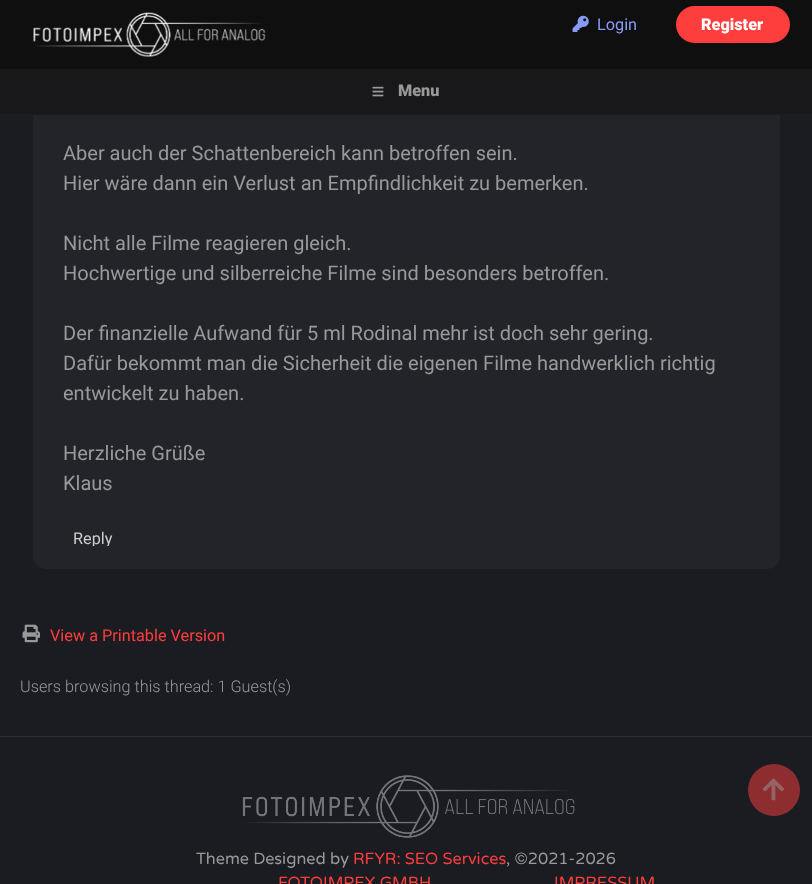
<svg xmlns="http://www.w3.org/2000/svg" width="812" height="884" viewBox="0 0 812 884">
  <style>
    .t1 { font: 16.25px Roboto; fill: #899bf7; }
    .t2 { font: 900 16.25px Roboto; fill: #fff; }
    .t3 { font: 900 16.25px Roboto; fill: #999; }
    .t4 { font: 20px Roboto; fill: #999; }
    .t5 { font: 16.25px Roboto; fill: #ccc; }
    .t6 { font: 16.25px Roboto; fill: #fe3e3d; }
    .t7 { font: 300 16.25px Roboto; fill: #999; }
    .t8 { font: 16.25px Varela Round; fill: #999; }
    .t9 { font: 16.25px Varela Round; fill: #fe3e3d; }
  </style>
  <defs>
    <clipPath id="clip1"><rect x="55" y="526" width="75" height="20"/></clipPath>
  </defs>
  <rect width="100%" height="100%" fill="#1b1c22"/>
  <rect x="33" y="-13" width="747" height="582" rx="13" fill="#23242a"/>
  <rect x="0" y="0" width="812" height="69" fill="#0f0f10"/>
  <image x="33" y="12" width="233" height="45" href="images/1.png"/>
  <image x="572" y="15" width="17" height="17" href="images/2.png"/>
  <text x="597" y="30" class="t1">Login</text>
  <rect x="676" y="6" width="114" height="37" rx="18.5" fill="#fe3e3d"/>
  <text x="701" y="30" class="t2">Register</text>
  <rect x="0" y="69" width="812" height="45" fill="#18181a"/>
  <rect x="33" y="114" width="747" height="1" fill="#1c1d22"/>
  <image x="372" y="86" width="12" height="11" href="images/3.png"/>
  <text x="398" y="96" class="t3">Menu</text>
  <text x="63" y="160" class="t4">Aber auch der Schattenbereich kann betroffen sein.</text>
  <text x="63" y="190" class="t4">Hier wäre dann ein Verlust an Empfindlichkeit zu bemerken.</text>
  <text x="63" y="250" class="t4">Nicht alle Filme reagieren gleich.</text>
  <text x="63" y="280" class="t4">Hochwertige und silberreiche Filme sind besonders betroffen.</text>
  <text x="63" y="340" class="t4">Der finanzielle Aufwand für 5 ml Rodinal mehr ist doch sehr gering.</text>
  <text x="63" y="370" class="t4">Dafür bekommt man die Sicherheit die eigenen Filme handwerklich richtig</text>
  <text x="63" y="400" class="t4">entwickelt zu haben.</text>
  <text x="63" y="460" class="t4">Herzliche Grüße</text>
  <text x="63" y="490" class="t4">Klaus</text>
  <g clip-path="url(#clip1)">
    <text x="73" y="544" class="t5">Reply</text>
  </g>
  <image x="22" y="624" width="18" height="19" href="images/4.png"/>
  <text x="50" y="641" class="t6">View a Printable Version</text>
  <text x="20" y="692" class="t7">Users browsing this thread: 1 Guest(s)</text>
  <circle cx="774" cy="790" r="26" fill="#8d2d30"/>
  <image x="762" y="778" width="22" height="23" href="images/5.png"/>
  <rect x="0" y="736" width="812" height="1" fill="#2d2e38"/>
  <image x="242" y="775" width="333" height="63" href="images/6.png"/>
  <text x="196" y="864" class="t8">Theme Designed by</text>
  <text x="353" y="864" class="t9">RFYR: SEO Services</text>
  <text x="506" y="864" class="t8">, ©2021-2026</text>
  <text x="278" y="888" class="t9">FOTOIMPEX GMBH</text>
  <text x="554" y="888" class="t9">IMPRESSUM</text>
</svg>
